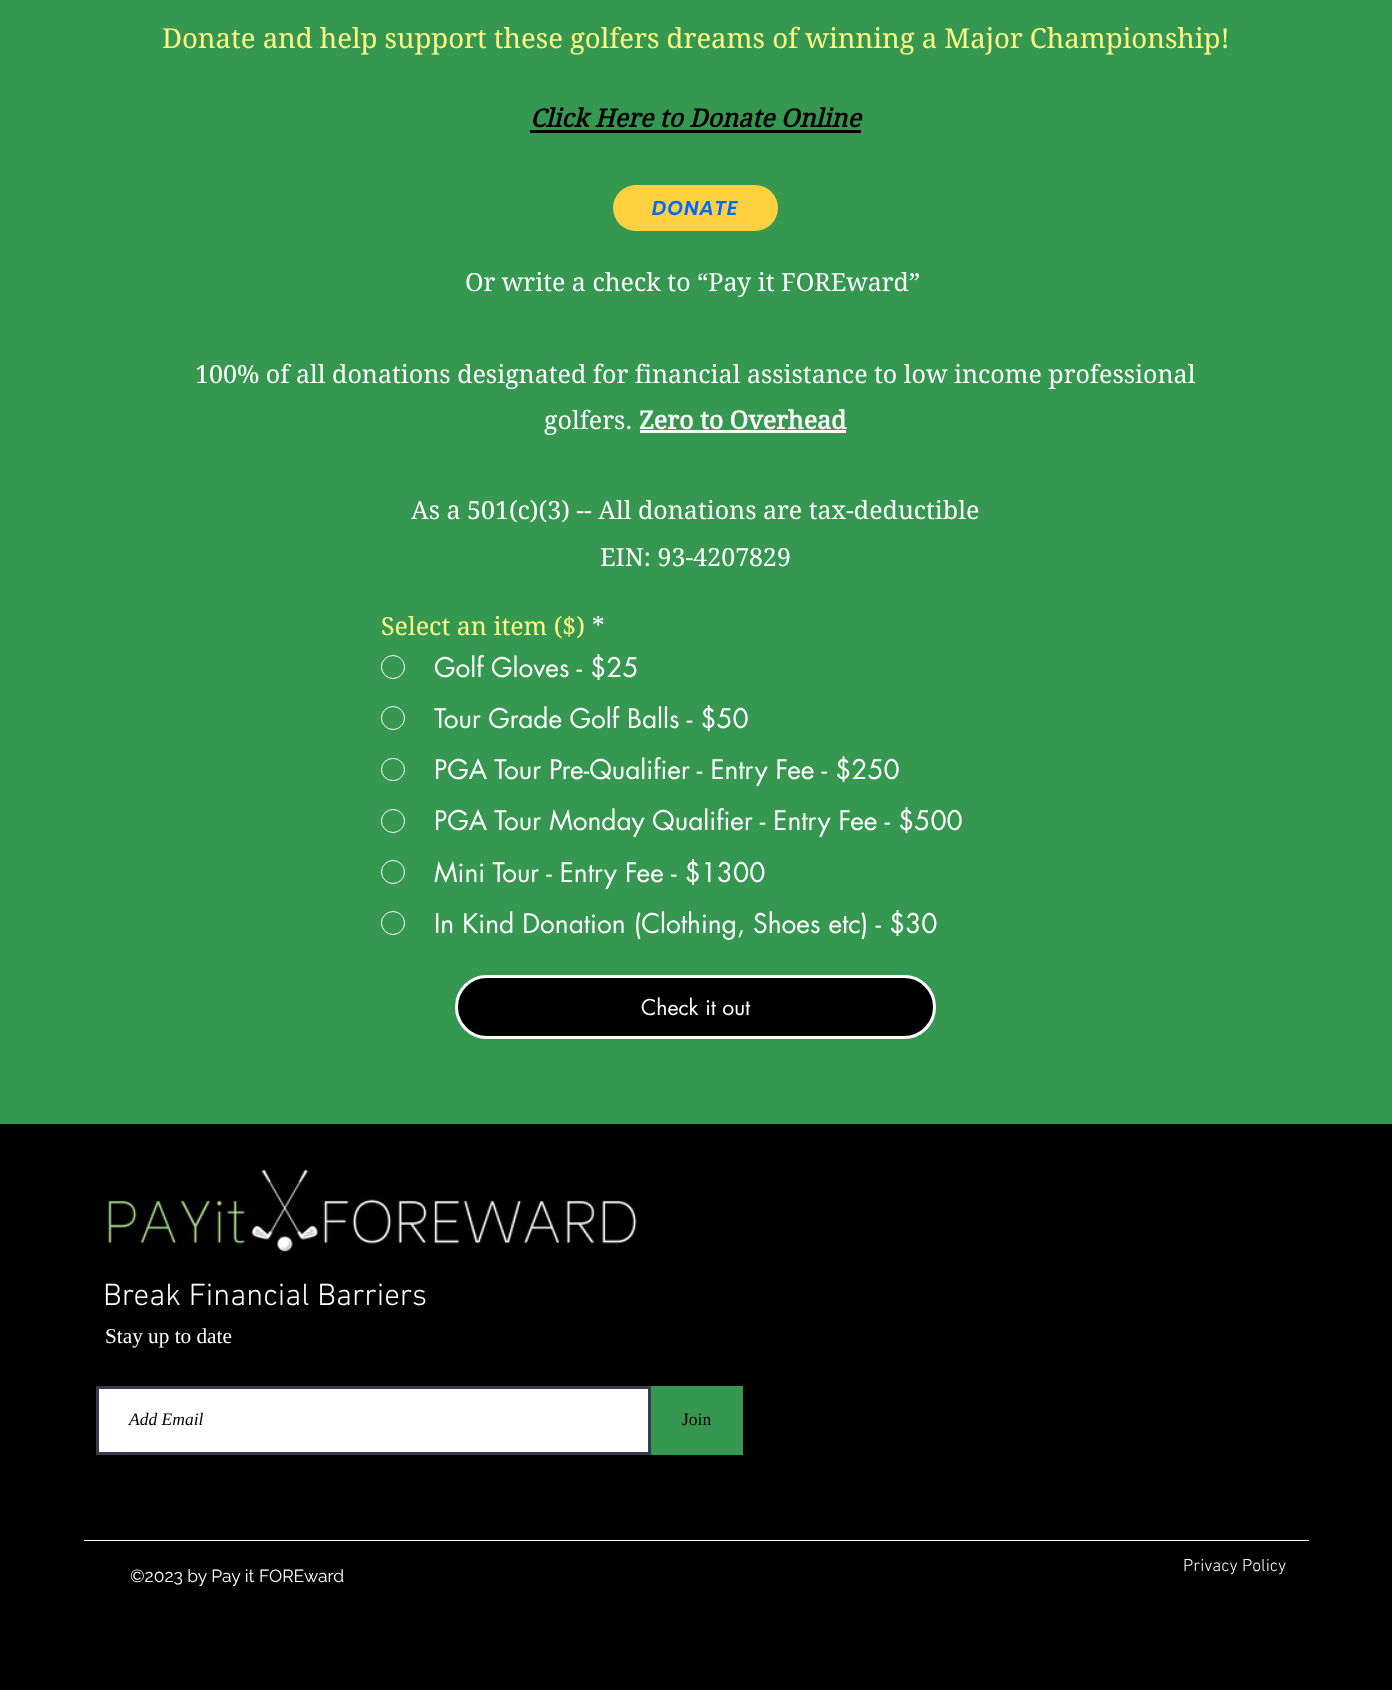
<svg xmlns="http://www.w3.org/2000/svg" width="1392" height="1690" viewBox="0 0 1392 1690">
  <style>
    .t1 { font: 27.5px 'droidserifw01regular'; fill: #fff985; }
    .t2 { font: italic bold 25px 'droidserifw01regular'; fill: #000; }
    .t3 { font: 25px 'droidserifw01regular'; fill: #fff; }
    .t4 { font: bold 25px 'droidserifw01regular'; fill: #fff; }
    .t5 { font: italic 600 20px Poppins; letter-spacing: 1px; fill: #0069ff; }
    .t6 { font: 25px 'droidserifw01regular'; fill: #fff985; }
    .t7 { font: 26.25px futura; fill: #fff; }
    .t8 { font: 21.25px futura; fill: #fff; }
    .t9 { font: 300 31.25px 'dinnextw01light'; fill: #fff; }
    .t10 { font: 21.25px Liberation Serif; fill: #fff; }
    .t11 { font: italic 17.5px Liberation Serif; fill: #000; }
    .t12 { font: 17.5px Liberation Serif; fill: #000; }
    .t13 { font: 300 17.5px 'dinnextw01light'; fill: #fff; }
    .t14 { font: 17.5px Raleway; fill: #fff; }
  </style>
  <rect width="100%" height="100%" fill="#000"/>
  <rect x="0" y="0" width="1392" height="1124" fill="#369751"/>
  <text x="162" y="48" class="t1">Donate and help support these golfers dreams of winning a Major Championship!</text>
  <text x="530" y="127" class="t2">Click Here to Donate Online</text>
  <rect x="530" y="130" width="331" height="3" fill="#000"/>
  <text x="465" y="291" class="t3">Or write a check to “Pay it FOREward”</text>
  <text x="195" y="383" class="t3">100% of all donations designated for financial assistance to low income professional</text>
  <text x="544" y="429" class="t3">golfers.</text>
  <text x="639" y="429" class="t4">Zero to Overhead</text>
  <rect x="640" y="430" width="206" height="3" fill="#fff"/>
  <text x="411" y="519" class="t3">As a 501(c)(3) -- All donations are tax-deductible</text>
  <text x="600" y="566" class="t3">EIN: 93-4207829</text>
  <rect x="613" y="185" width="165" height="46" rx="23" fill="#ffd040"/>
  <text x="652" y="215" class="t5">DONATE</text>
  <text x="381" y="635" class="t6">Select an item ($)</text>
  <text x="592" y="635" class="t3">*</text>
  <circle cx="393" cy="667" r="11.5" fill="none" stroke="#fff"/>
  <text x="434" y="677" class="t7">Golf Gloves - $25</text>
  <circle cx="393" cy="718" r="11.5" fill="none" stroke="#fff"/>
  <text x="434" y="728" class="t7">Tour Grade Golf Balls - $50</text>
  <rect x="381.5" y="758.5" width="23" height="22" rx="11" fill="none" stroke="#fff"/>
  <text x="434" y="779" class="t7">PGA Tour Pre-Qualifier - Entry Fee - $250</text>
  <circle cx="393" cy="821" r="11.5" fill="none" stroke="#fff"/>
  <text x="434" y="830" class="t7">PGA Tour Monday Qualifier - Entry Fee - $500</text>
  <circle cx="393" cy="872" r="11.5" fill="none" stroke="#fff"/>
  <text x="434" y="882" class="t7">Mini Tour - Entry Fee - $1300</text>
  <circle cx="393" cy="923" r="11.5" fill="none" stroke="#fff"/>
  <text x="434" y="933" class="t7">In Kind Donation (Clothing, Shoes etc) - $30</text>
  <rect x="456.5" y="976.5" width="478" height="61" rx="30.5" fill="#000" stroke="#fff" stroke-width="3"/>
  <text x="641" y="1015" class="t8">Check it out</text>
  <image x="108" y="1169" width="529" height="83" href="images/1.png"/>
  <text x="103" y="1305" class="t9">Break Financial Barriers</text>
  <text x="105" y="1343" class="t10">Stay up to date</text>
  <rect x="97.5" y="1387.5" width="552" height="66" fill="#fff" stroke="#373b4d" stroke-width="3"/>
  <text x="129" y="1425" class="t11">Add Email</text>
  <rect x="651" y="1386" width="92" height="69" fill="#369751"/>
  <text x="682" y="1425" class="t12">Join</text>
  <rect x="84" y="1540" width="1225" height="1" fill="#fff"/>
  <text x="1183" y="1571" class="t13">Privacy Policy</text>
  <text x="130" y="1582" class="t14">©2023 by Pay it FOREward</text>
</svg>
